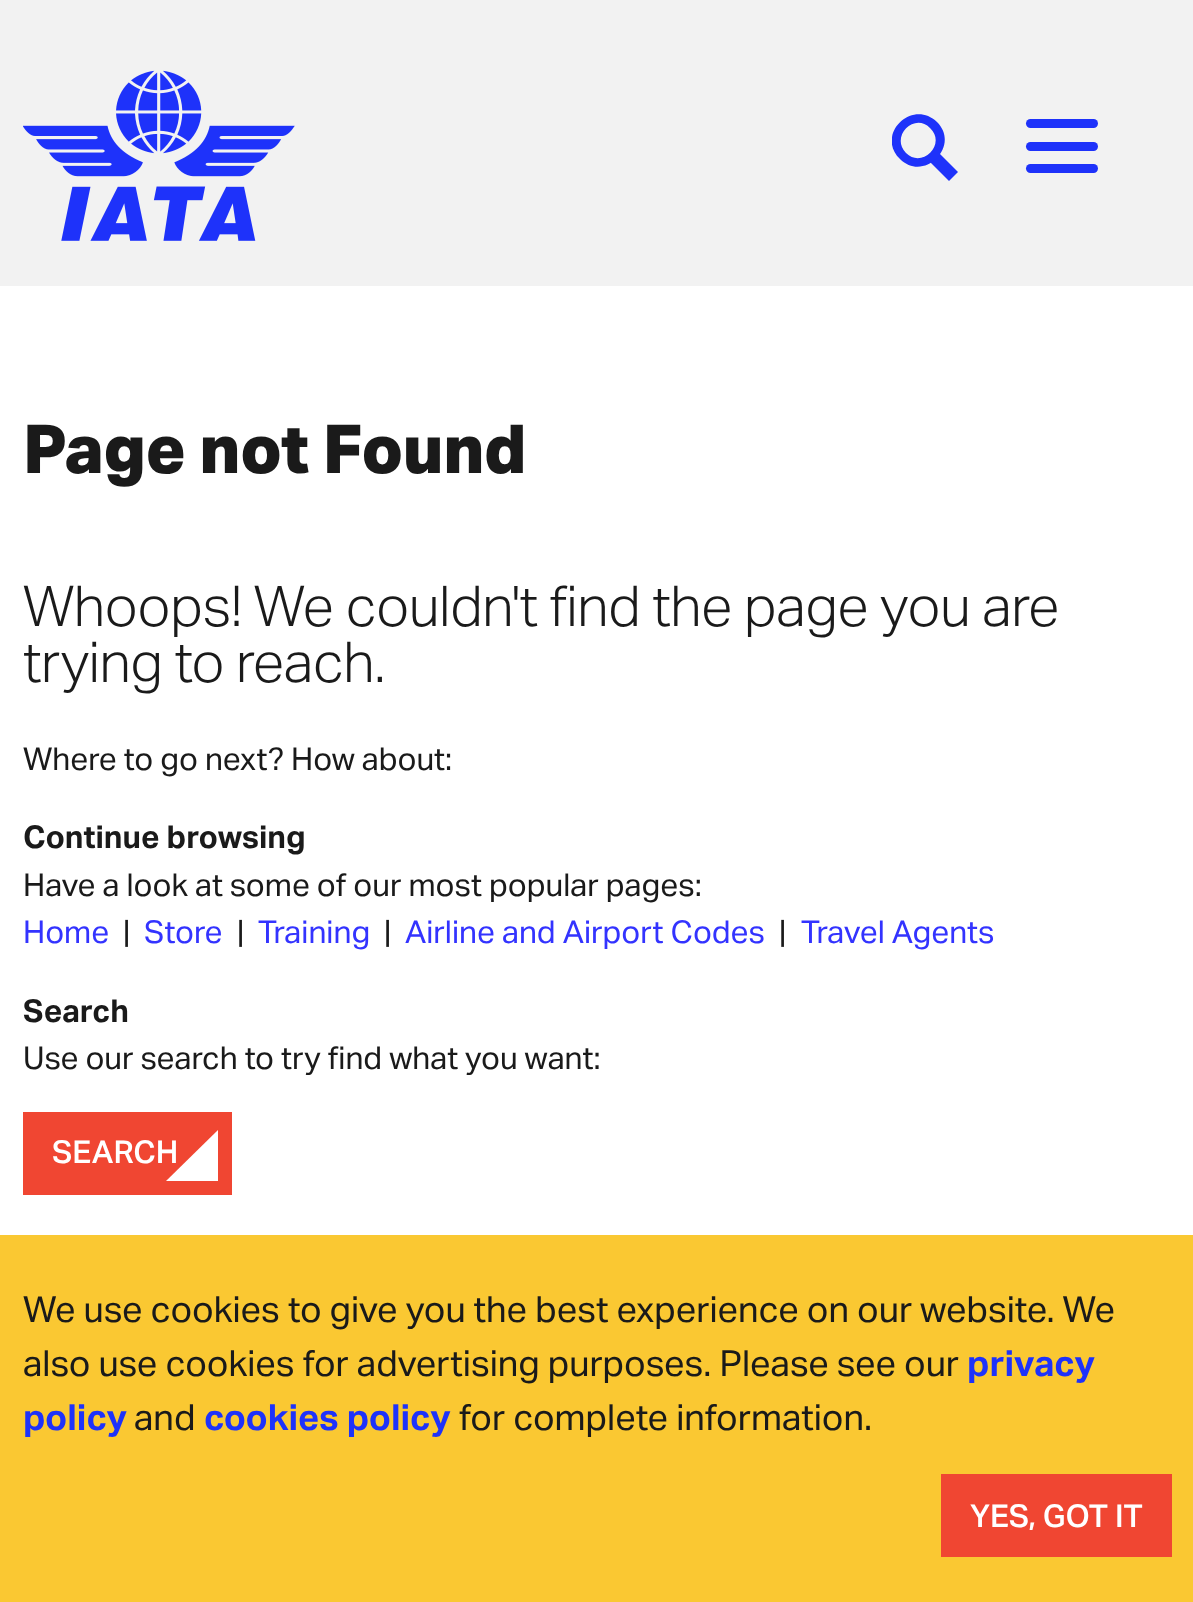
<svg xmlns="http://www.w3.org/2000/svg" width="1193" height="1602" viewBox="0 0 1193 1602">
  <style>
    .t1 { font: 800 67.5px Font; letter-spacing: -0.55px; fill: #1a1a1a; }
    .t2 { font: 300 56.25px Font; letter-spacing: -0.55px; fill: #1a1a1a; }
    .t3 { font: 31.5px Font; fill: #1a1a1a; }
    .t4 { font: bold 31.5px Font; fill: #1a1a1a; }
    .t5 { font: 31.5px Font; fill: #33f; }
    .t6 { font: 500 31.5px Font; fill: #fff; }
    .t7 { font: 36px Font; fill: #1a1a1a; }
    .t8 { font: bold 36px Font; fill: #1e32fa; }
  </style>
  <defs>
    <clipPath id="clip1"><rect x="892" y="114" width="69" height="66"/></clipPath>
  </defs>
  <rect width="100%" height="100%" fill="#fff"/>
  <rect x="0" y="0" width="1193" height="286" fill="#f2f2f2"/>
  <image x="23" y="70" width="272" height="171" href="images/1.png"/>
  <path d="M930 162L939 153L958 172L949 181Z" fill="#1e32fa"/>
  <g clip-path="url(#clip1)">
    <path d="M900 159C924 183 961 146 937 122C912 98 875 135 900 159ZM930 128C947 144 922 169 906 153C890 137 914 112 930 128Z" fill="#1e32fa"/>
  </g>
  <rect x="1026" y="119" width="72" height="9" rx="4.5" fill="#1e32fa"/>
  <rect x="1026" y="142" width="72" height="9" rx="4.5" fill="#1e32fa"/>
  <rect x="1026" y="164" width="72" height="9" rx="4.5" fill="#1e32fa"/>
  <text x="23" y="473" class="t1">Page not Found</text>
  <text x="23" y="626" class="t2">Whoops! We couldn't find the page you are</text>
  <text x="23" y="682" class="t2">trying to reach.</text>
  <text x="23" y="770" class="t3">Where to go next? How about:</text>
  <text x="23" y="848" class="t4">Continue browsing</text>
  <text x="23" y="896" class="t3">Have a look at some of our most popular pages:</text>
  <text x="23" y="943" class="t5">Home</text>
  <text x="123" y="943" class="t3">|</text>
  <text x="144" y="943" class="t5">Store</text>
  <text x="237" y="943" class="t3">|</text>
  <text x="258" y="943" class="t5">Training</text>
  <text x="384" y="943" class="t3">|</text>
  <text x="405" y="943" class="t5">Airline and Airport Codes</text>
  <text x="779" y="943" class="t3">|</text>
  <text x="801" y="943" class="t5">Travel Agents</text>
  <text x="23" y="1022" class="t4">Search</text>
  <text x="23" y="1069" class="t3">Use our search to try find what you want:</text>
  <rect x="23" y="1112" width="209" height="83" fill="#f04632"/>
  <text x="52" y="1163" class="t6">SEARCH</text>
  <path d="M218 1181H166L218 1130Z" fill="#fff"/>
  <rect x="0" y="1235" width="1193" height="367" fill="#fac832"/>
  <text x="23" y="1322" class="t7">We use cookies to give you the best experience on our website. We</text>
  <text x="23" y="1376" class="t7">also use cookies for advertising purposes. Please see our</text>
  <text x="967" y="1376" class="t8">privacy</text>
  <text x="23" y="1430" class="t8">policy</text>
  <text x="134" y="1430" class="t7">and</text>
  <text x="204" y="1430" class="t8">cookies policy</text>
  <text x="459" y="1430" class="t7">for complete information.</text>
  <rect x="941" y="1474" width="231" height="83" fill="#f04632"/>
  <text x="970" y="1527" class="t6">YES, GOT IT</text>
</svg>
